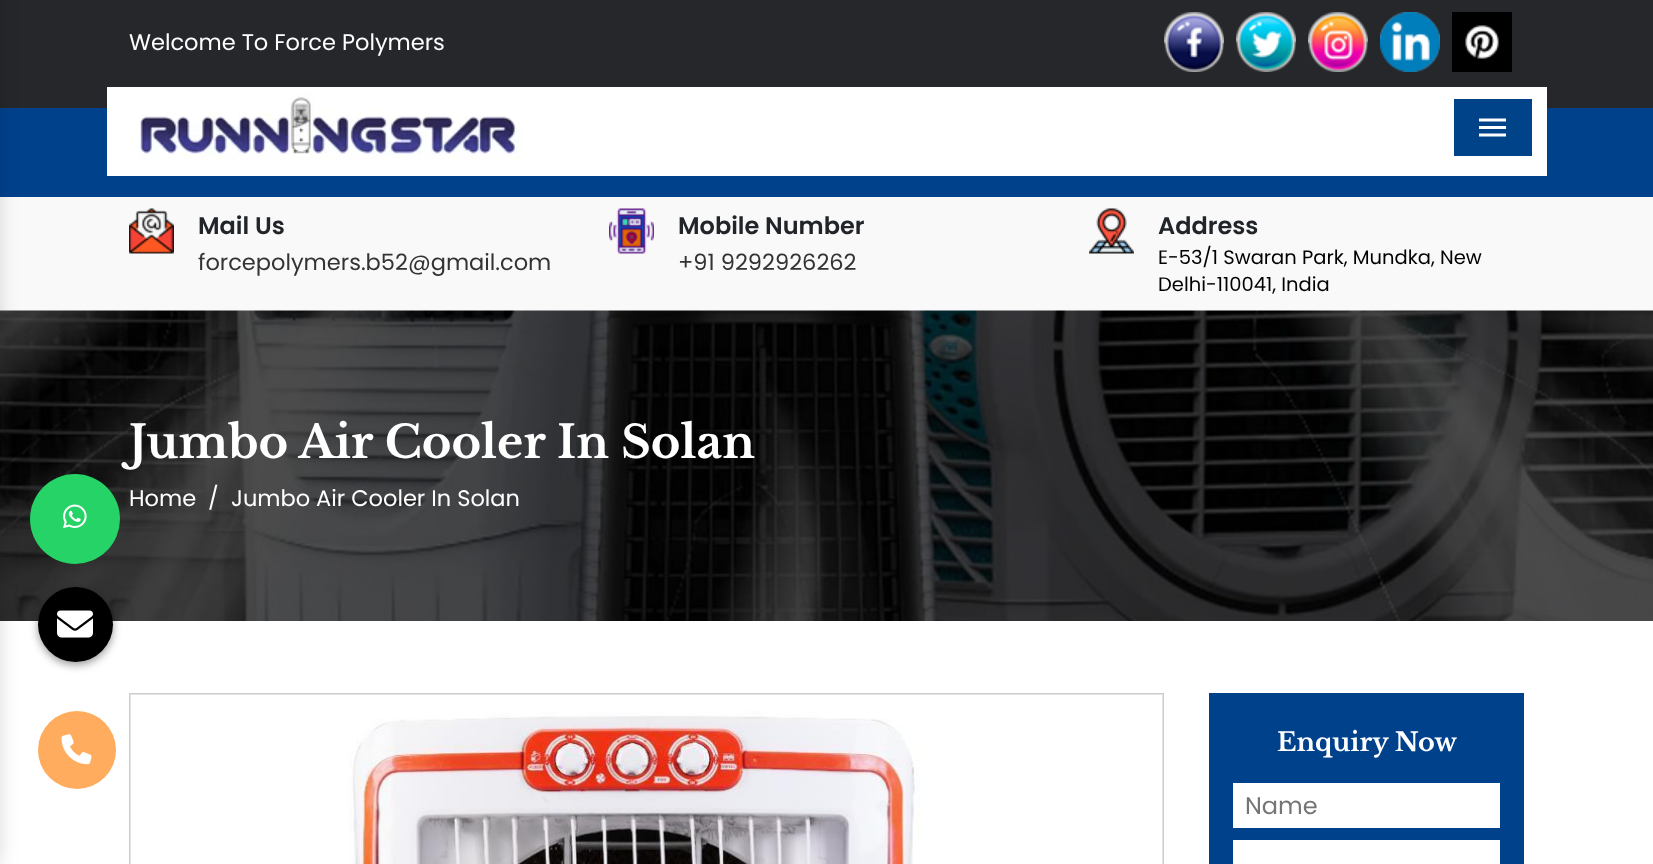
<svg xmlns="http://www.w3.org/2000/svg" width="1653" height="864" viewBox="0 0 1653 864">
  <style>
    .t1 { font: 22.5px Poppins; fill: #fff; }
    .t2 { font: 600 24px Poppins; fill: #212529; }
    .t3 { font: 22.5px Poppins; fill: #333; }
    .t4 { font: 19.5px Poppins; fill: #000; }
    .t5 { font: bold 45px Libre Baskerville; fill: #fff; }
    .t6 { font: bold 25.5px Libre Baskerville; fill: #fff; }
    .t7 { font: 24px Poppins; fill: #757575; }
  </style>
  <rect width="100%" height="100%" fill="#fff"/>
  <rect x="0" y="0" width="1653" height="108" fill="#26272b"/>
  <rect x="0" y="108" width="1653" height="89" fill="#00418c"/>
  <rect x="0" y="197" width="1653" height="114" fill="#f9f9f9"/>
  <image x="0" y="310" width="1653" height="311" href="images/11.png"/>
  <rect x="-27" y="0" width="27" height="864" fill="#00000024" filter="blur(9px)"/>
  <text x="129" y="50" class="t1">Welcome To Force Polymers</text>
  <image x="1164" y="12" width="60" height="60" href="images/1.png"/>
  <image x="1236" y="12" width="60" height="60" href="images/2.png"/>
  <image x="1308" y="12" width="60" height="60" href="images/3.png"/>
  <image x="1380" y="12" width="60" height="60" href="images/4.png"/>
  <image x="1452" y="12" width="60" height="60" href="images/5.png"/>
  <rect x="107" y="87" width="1440" height="89" fill="#fff"/>
  <image x="140" y="93" width="382" height="67" href="images/6.png"/>
  <rect x="1454" y="99" width="78" height="57" fill="#004388"/>
  <image x="1479" y="118" width="27" height="19" href="images/7.png"/>
  <image x="129" y="208" width="45" height="46" href="images/8.png"/>
  <text x="198" y="234" class="t2">Mail Us</text>
  <text x="198" y="270" class="t3">forcepolymers.b52@gmail.com</text>
  <image x="609" y="208" width="45" height="46" href="images/9.png"/>
  <text x="678" y="234" class="t2">Mobile Number</text>
  <text x="678" y="270" class="t3">+91 9292926262</text>
  <image x="1089" y="208" width="45" height="46" href="images/10.png"/>
  <text x="1158" y="234" class="t2">Address</text>
  <text x="1158" y="264" class="t4">E-53/1 Swaran Park, Mundka, New</text>
  <text x="1158" y="291" class="t4">Delhi-110041, India</text>
  <text x="129" y="458" class="t5">Jumbo Air Cooler In Solan</text>
  <text x="129" y="506" class="t1">Home</text>
  <text x="208" y="506" class="t1">/</text>
  <text x="231" y="506" class="t1">Jumbo Air Cooler In Solan</text>
  <circle cx="75" cy="519" r="45" fill="#25d366"/>
  <image x="63" y="504" width="24" height="25" href="images/12.png"/>
  <rect x="38" y="590" width="75" height="75" rx="37.5" fill="#00000066" filter="blur(4.5px)"/>
  <circle cx="75.5" cy="624.5" r="37.5" fill="#000"/>
  <image x="57" y="610" width="36" height="28" href="images/13.png"/>
  <circle cx="77" cy="750" r="39" fill="#ffac5e"/>
  <image x="61" y="734" width="31" height="31" href="images/14.png"/>
  <rect x="130" y="694" width="1033" height="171" fill="none" stroke="#ccc" stroke-width="2"/>
  <image x="130" y="694" width="1033" height="170" href="images/15.png"/>
  <rect x="1209" y="693" width="315" height="171" fill="#00418c"/>
  <text x="1277" y="751" class="t6">Enquiry Now</text>
  <rect x="1233" y="783" width="267" height="45" fill="#fff"/>
  <text x="1245" y="814" class="t7">Name</text>
  <rect x="1233" y="840" width="267" height="24" fill="#fff"/>
</svg>
